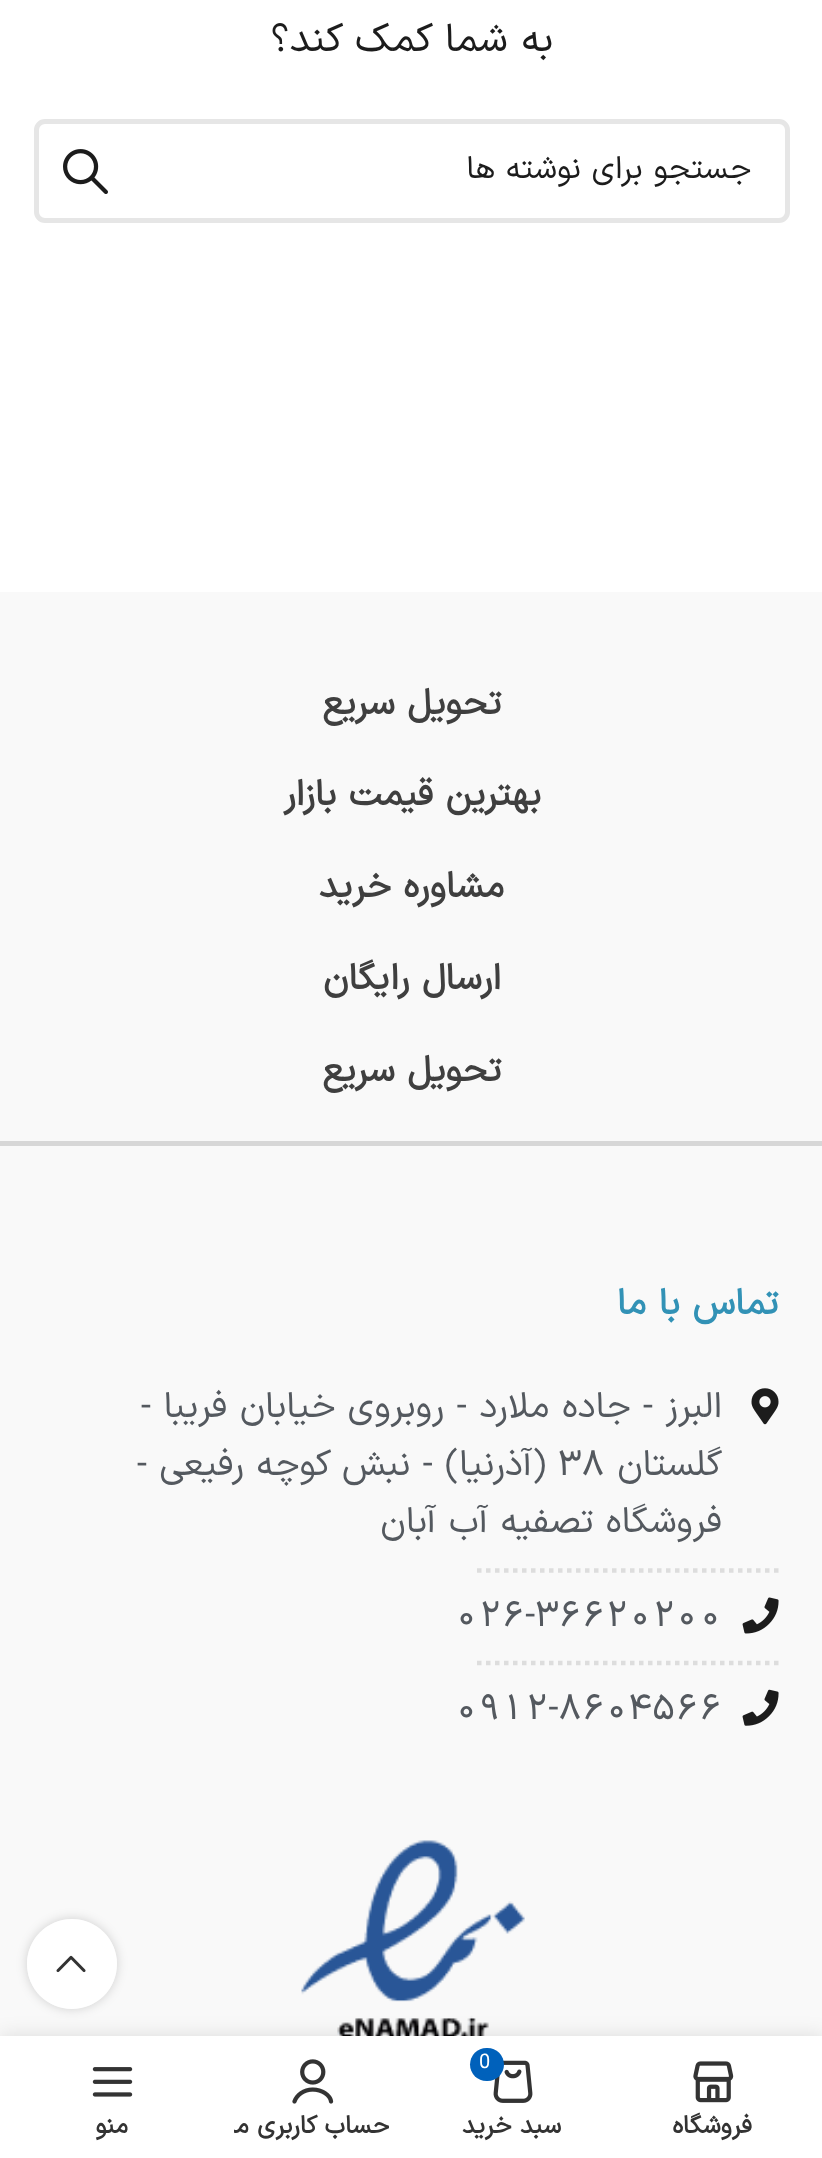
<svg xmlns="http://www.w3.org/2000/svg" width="822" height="2158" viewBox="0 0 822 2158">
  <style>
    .t1 { font: 39.5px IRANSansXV; direction: rtl; fill: #1c1c1c; }
    .t2 { font: 31.5px IRANSansXV; direction: rtl; fill: #1c1c1c; }
    .t3 { font: bold 36px IRANSansXV; direction: rtl; fill: #3f3f3f; }
    .t4 { font: bold 36px IRANSansXV; direction: rtl; fill: #3292b6; }
    .t5 { font: 36px IRANSansXV; direction: rtl; fill: #54595f; }
    .t6 { font: 36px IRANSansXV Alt; fill: #54595f; }
    .t7 { font: bold 24.75px IRANSansXV; direction: rtl; fill: #333; }
    .t8 { font: 20px IRANSansXV; fill: #fff; }
  </style>
  <defs>
    <clipPath id="clip1"><path d="M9 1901H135V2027H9ZM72 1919C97 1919 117 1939 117 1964C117 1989 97 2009 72 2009C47 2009 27 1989 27 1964C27 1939 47 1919 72 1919Z" clip-rule="evenodd"/></clipPath>
    <clipPath id="clip2"><rect x="234" y="2113" width="155" height="29"/></clipPath>
  </defs>
  <rect width="100%" height="100%" fill="#fff"/>
  <text x="553" y="51" class="t1">به شما کمک کند؟</text>
  <rect x="36.5" y="121.5" width="751" height="99" rx="8.5" fill="none" stroke="#e6e6e6" stroke-width="5"/>
  <text x="751" y="178" class="t2">جستجو برای نوشته ها</text>
  <image x="63" y="149" width="45" height="45" href="images/1.png"/>
  <rect x="0" y="592" width="822" height="1444" fill="#f9f9f9"/>
  <rect x="0" y="1141" width="822" height="5" fill="#d7d7d7"/>
  <text x="501" y="714" class="t3">تحویل سریع</text>
  <text x="541" y="805" class="t3">بهترین قیمت بازار</text>
  <text x="504" y="897" class="t3">مشاوره خرید</text>
  <text x="501" y="989" class="t3">ارسال رایگان</text>
  <text x="501" y="1081" class="t3">تحویل سریع</text>
  <text x="778" y="1314" class="t4">تماس با ما</text>
  <image x="751" y="1388" width="28" height="37" href="images/2.png"/>
  <text x="722" y="1417" class="t5">البرز - جاده ملارد - روبروی خیابان فریبا -</text>
  <text x="722" y="1475" class="t5">گلستان</text>
  <text x="558" y="1475" class="t6">38</text>
  <text x="546" y="1475" class="t5">(آذرنیا) - نبش کوچه رفیعی -</text>
  <text x="722" y="1532" class="t5">فروشگاه تصفیه آب آبان</text>
  <path d="M477 1570.5H778.5" fill="none" stroke="#ddd" stroke-width="4.5" stroke-dasharray="4.5 4.5"/>
  <image x="742" y="1597" width="37" height="37" href="images/3.png"/>
  <text x="455" y="1626" class="t6">026-36620200</text>
  <path d="M477 1663H778.5" fill="none" stroke="#ddd" stroke-width="4.5" stroke-dasharray="4.5 4.5"/>
  <image x="742" y="1689" width="37" height="37" href="images/4.png"/>
  <text x="455" y="1719" class="t6">0912-8604566</text>
  <image x="301" y="1840" width="224" height="196" href="images/5.png"/>
  <g clip-path="url(#clip1)">
    <rect x="27" y="1919" width="90" height="90" rx="45" fill="#0000002b" filter="blur(5.5px)"/>
  </g>
  <circle cx="72" cy="1964" r="45" fill="#ffffffe6"/>
  <image x="56" y="1955" width="30" height="18" href="images/6.png"/>
  <rect x="0" y="2036" width="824" height="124" fill="#0000001f" filter="blur(10px)"/>
  <rect x="0" y="2036" width="822" height="122" fill="#fff"/>
  <image x="693" y="2061" width="41" height="42" href="images/7.png"/>
  <text x="752" y="2133" class="t7">فروشگاه</text>
  <image x="493" y="2060" width="40" height="43" href="images/8.png"/>
  <rect x="470" y="2048" width="34" height="33" rx="16.5" fill="#0061bb"/>
  <text x="479" y="2068" class="t8">0</text>
  <text x="561" y="2133" class="t7">سبد خرید</text>
  <image x="292" y="2059" width="42" height="45" href="images/9.png"/>
  <g clip-path="url(#clip2)">
    <text x="389" y="2133" class="t7">حساب کاربری من</text>
  </g>
  <image x="92" y="2067" width="41" height="30" href="images/10.png"/>
  <text x="128" y="2133" class="t7">منو</text>
</svg>
